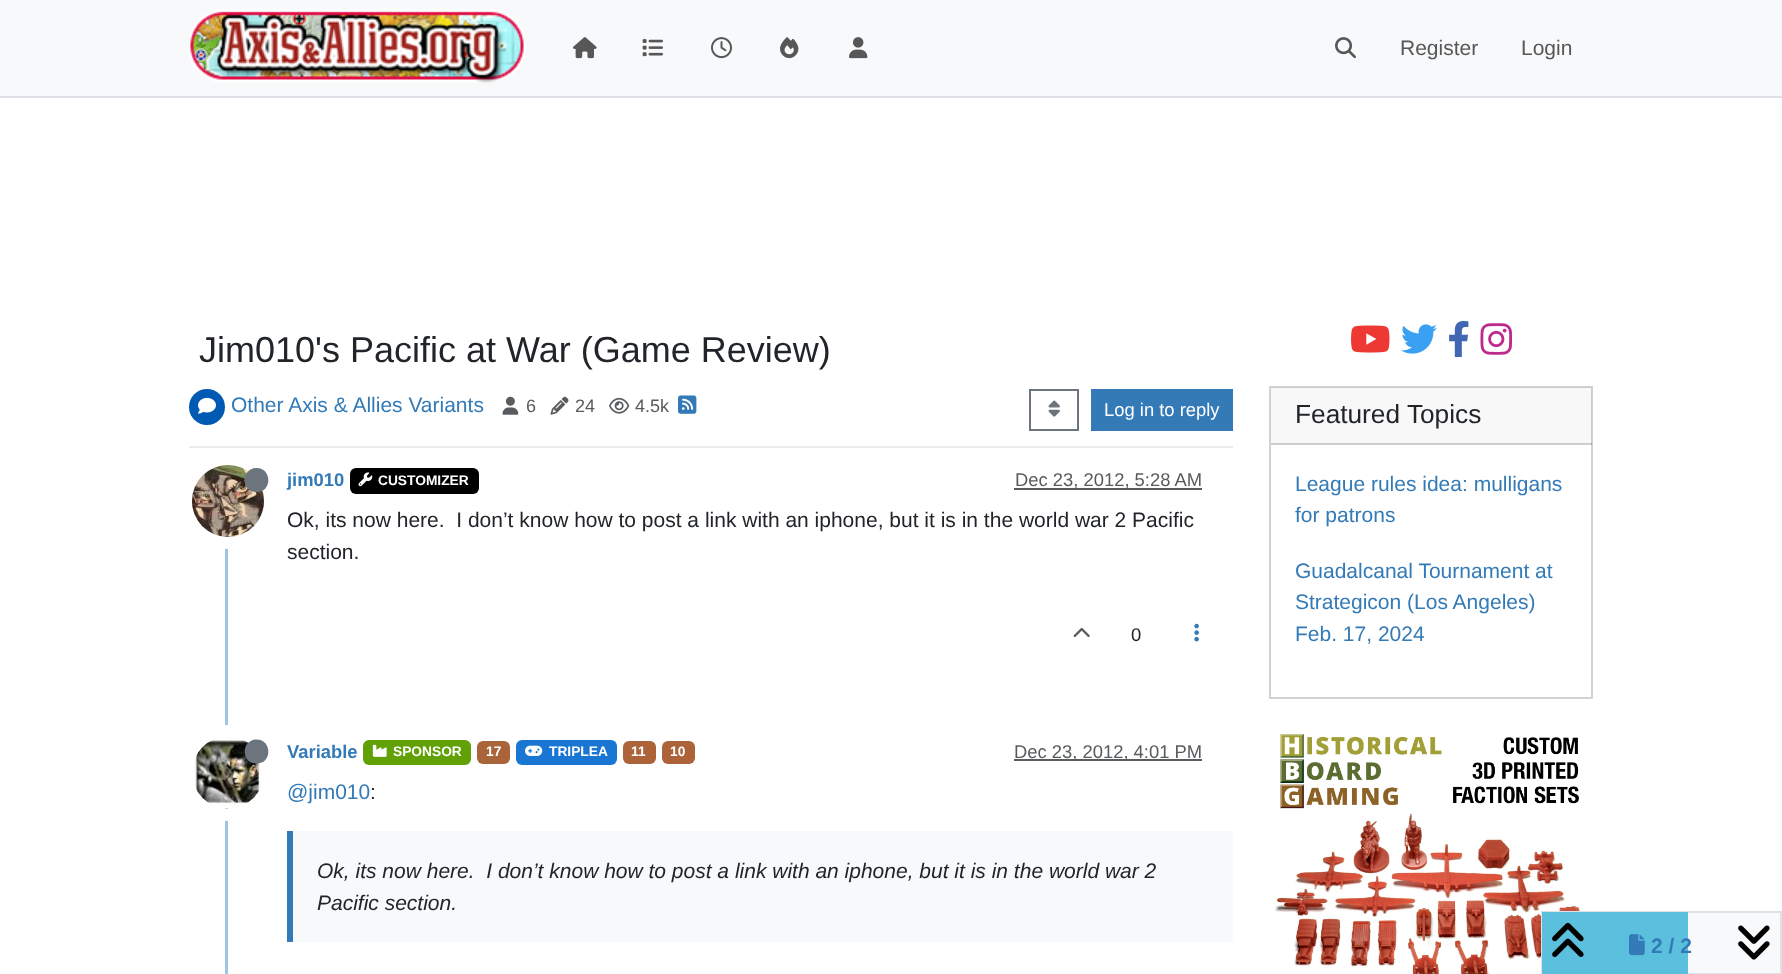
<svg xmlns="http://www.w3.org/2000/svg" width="1782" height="974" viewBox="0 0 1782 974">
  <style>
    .t1 { font: 21px Liberation Sans; fill: #575758; }
    .t2 { font: 36px Liberation Sans; fill: #212529; }
    .t3 { font: 21px Liberation Sans; fill: #337ab7; }
    .t4 { font: 18px Liberation Sans; fill: #585b5e; }
    .t5 { font: 18.4px Liberation Sans; fill: #fff; }
    .t6 { font: bold 18.4px Liberation Sans; fill: #337ab7; }
    .t7 { font: bold 13.75px Liberation Sans; fill: #fff; }
    .t8 { font: 18.4px Liberation Sans; fill: #585b5e; }
    .t9 { font: 21px Liberation Sans; fill: #212529; }
    .t10 { font: 18.4px Liberation Sans; fill: #212529; }
    .t11 { font: italic 21px Liberation Sans; fill: #212529; }
    .t12 { font: bold 21px Liberation Sans; fill: #337ab7; }
    .t13 { font: 26.25px Liberation Sans; fill: #212529; }
  </style>
  <rect width="100%" height="100%" fill="#fff"/>
  <rect x="0" y="0" width="1782" height="96" fill="#f8f9fa"/>
  <rect x="0" y="96" width="1782" height="2" fill="#dee2e6"/>
  <image x="189" y="9" width="337" height="74" href="images/1.png"/>
  <image x="573" y="37" width="24" height="22" href="images/2.png"/>
  <image x="642" y="39" width="21" height="18" href="images/3.png"/>
  <image x="711" y="37" width="21" height="22" href="images/4.png"/>
  <image x="780" y="37" width="19" height="22" href="images/5.png"/>
  <image x="849" y="37" width="19" height="22" href="images/6.png"/>
  <image x="1335" y="37" width="21" height="22" href="images/7.png"/>
  <text x="1400" y="55" class="t1">Register</text>
  <text x="1521" y="55" class="t1">Login</text>
  <text x="199" y="362" class="t2">Jim010's Pacific at War (Game Review)</text>
  <rect x="189" y="446" width="1044" height="2" fill="#e9ecef"/>
  <circle cx="207" cy="407" r="18" fill="#0059b2"/>
  <image x="198" y="397" width="18" height="17" href="images/8.png"/>
  <text x="231" y="412" class="t3">Other Axis &amp; Allies Variants</text>
  <image x="502" y="396" width="17" height="19" href="images/9.png"/>
  <text x="526" y="412" class="t4">6</text>
  <image x="550" y="396" width="19" height="19" href="images/10.png"/>
  <text x="575" y="412" class="t4">24</text>
  <image x="609" y="397" width="21" height="17" href="images/11.png"/>
  <text x="635" y="412" class="t4">4.5k</text>
  <image x="678" y="395" width="19" height="19" href="images/12.png"/>
  <rect x="1030" y="390" width="48" height="40" fill="none" stroke="#6c757d" stroke-width="2"/>
  <image x="1048" y="400" width="12" height="17" href="images/13.png"/>
  <rect x="1091" y="389" width="142" height="42" fill="#337ab7"/>
  <text x="1104" y="416" class="t5">Log in to reply</text>
  <rect x="225" y="462" width="3" height="512" fill="#a0c4e4"/>
  <circle cx="228" cy="501" r="42" fill="none" stroke="#fff" stroke-width="12"/>
  <image x="192" y="465" width="72" height="72" href="images/14.png"/>
  <path d="M256.5 492C272.5 492 272 468 256.5 468C241 468 240.5 492 256.5 492Z" fill="#6c757d"/>
  <text x="287" y="486" class="t6">jim010</text>
  <rect x="350" y="468" width="129" height="26" rx="6" fill="#000"/>
  <image x="358" y="472" width="15" height="15" href="images/15.png"/>
  <text x="378" y="485" class="t7">CUSTOMIZER</text>
  <rect x="1014" y="488" width="188" height="2" fill="#595c5f"/>
  <text x="1015" y="486" class="t8">Dec 23, 2012, 5:28 AM</text>
  <text x="287" y="527" class="t9" xml:space="preserve">Ok, its now here.  I don’t know how to post a link with an iphone, but it is in the world war 2 Pacific</text>
  <text x="287" y="559" class="t9">section.</text>
  <image x="1073" y="627" width="17" height="10" href="images/16.png"/>
  <text x="1131" y="641" class="t10">0</text>
  <image x="1194" y="623" width="5" height="19" href="images/17.png"/>
  <circle cx="228" cy="773" r="42" fill="none" stroke="#fff" stroke-width="12"/>
  <image x="193" y="737" width="68" height="72" href="images/18.png"/>
  <path d="M256.5 763.5C272.5 763.5 272 739.5 256.5 739.5C241 739.5 240.5 763.5 256.5 763.5Z" fill="#6c757d"/>
  <text x="287" y="758" class="t6">Variable</text>
  <rect x="363" y="740" width="108" height="25" rx="6" fill="#61a106"/>
  <image x="372" y="744" width="15" height="13" href="images/19.png"/>
  <text x="393" y="756" class="t7">SPONSOR</text>
  <rect x="477" y="741" width="33" height="23" rx="6" fill="#a96439"/>
  <text x="486" y="756" class="t7">17</text>
  <rect x="516" y="740" width="101" height="25" rx="6" fill="#1976d2"/>
  <image x="525" y="745" width="18" height="11" href="images/20.png"/>
  <text x="549" y="756" class="t7">TRIPLEA</text>
  <rect x="623" y="741" width="33" height="23" rx="6" fill="#ac633a"/>
  <text x="631" y="756" class="t7">11</text>
  <rect x="662" y="741" width="33" height="23" rx="6" fill="#ac633a"/>
  <text x="670" y="756" class="t7">10</text>
  <rect x="1014" y="759" width="188" height="2" fill="#595c5f"/>
  <text x="1014" y="758" class="t8">Dec 23, 2012, 4:01 PM</text>
  <text x="287" y="799" class="t3">@jim010</text>
  <text x="370" y="799" class="t9">:</text>
  <rect x="293" y="831" width="940" height="111" fill="#f8f9fa"/>
  <rect x="287" y="831" width="6" height="111" fill="#337ab7"/>
  <text x="317" y="878" class="t11" xml:space="preserve">Ok, its now here.  I don’t know how to post a link with an iphone, but it is in the world war 2</text>
  <text x="317" y="910" class="t11">Pacific section.</text>
  <rect x="1688" y="913" width="92" height="60" fill="#f8f9fa"/>
  <image x="1275" y="734" width="313" height="240" href="images/28.png"/>
  <rect x="1542" y="912" width="239" height="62" fill="none" stroke="#dee2e6" stroke-width="2"/>
  <rect x="1542" y="912" width="146" height="62" fill="#5bc0de"/>
  <image x="1552" y="922" width="32" height="35" href="images/21.png"/>
  <image x="1629" y="934" width="16" height="22" href="images/22.png"/>
  <text x="1651" y="953" class="t12">2 / 2</text>
  <image x="1738" y="925" width="32" height="35" href="images/23.png"/>
  <image x="1351" y="325" width="39" height="28" href="images/24.png"/>
  <image x="1401" y="324" width="36" height="30" href="images/25.png"/>
  <image x="1449" y="321" width="20" height="36" href="images/26.png"/>
  <image x="1480" y="323" width="32" height="32" href="images/27.png"/>
  <rect x="1270" y="387" width="322" height="311" fill="none" stroke="#d2d2d2" stroke-width="2"/>
  <rect x="1271" y="387" width="321" height="57" fill="#21252908"/>
  <rect x="1271" y="443" width="321" height="2" fill="#0000002e"/>
  <text x="1295" y="423" class="t13">Featured Topics</text>
  <text x="1295" y="491" class="t3">League rules idea: mulligans</text>
  <text x="1295" y="522" class="t3">for patrons</text>
  <text x="1295" y="578" class="t3">Guadalcanal Tournament at</text>
  <text x="1295" y="609" class="t3">Strategicon (Los Angeles)</text>
  <text x="1295" y="641" class="t3">Feb. 17, 2024</text>
</svg>
